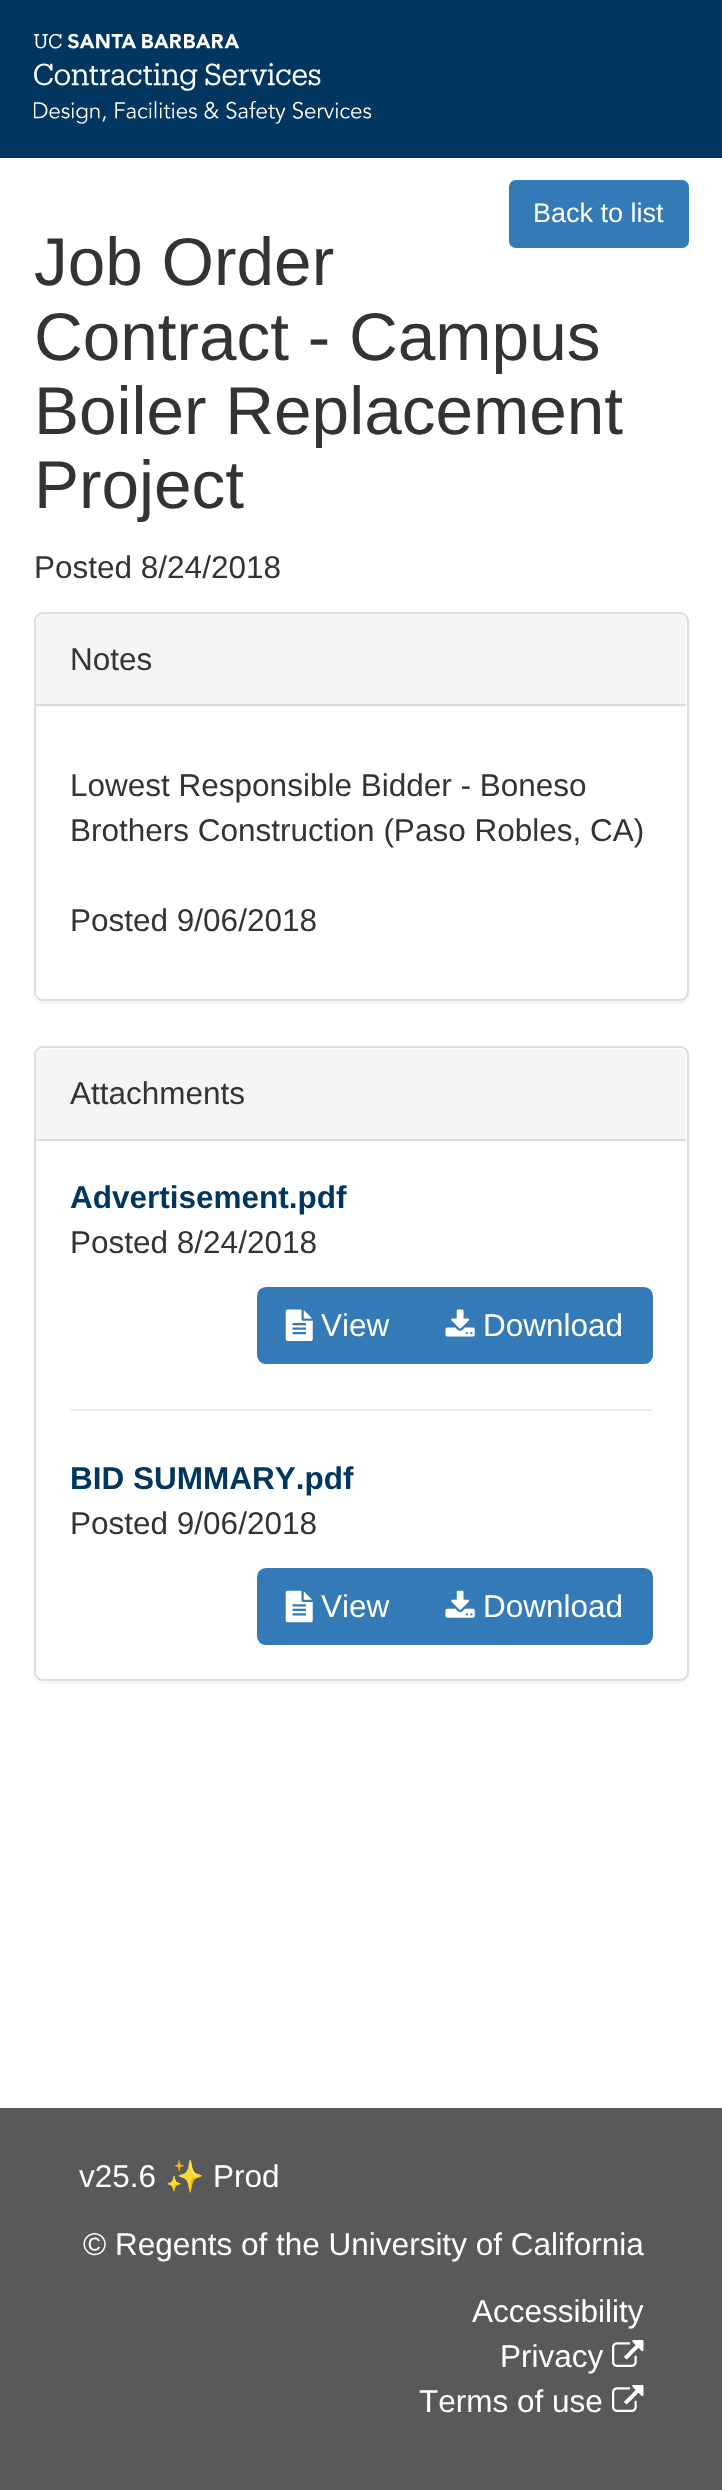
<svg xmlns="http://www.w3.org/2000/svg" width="722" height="2490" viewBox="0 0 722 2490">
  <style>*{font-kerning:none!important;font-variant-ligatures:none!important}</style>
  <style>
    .t1 { font: 27px Liberation Sans; fill: #fff; }
    .t2 { font: 67.5px Liberation Sans; fill: #333; }
    .t3 { font: 31.5px Liberation Sans; fill: #333; }
    .t4 { font: bold 31.5px Liberation Sans; fill: #003660; }
    .t5 { font: 31.5px Liberation Sans; fill: #fff; }
    .t6 { font: 31.5px Noto Color Emoji; fill: #fff; }
  </style>
  <rect width="100%" height="100%" fill="#fff"/>
  <rect x="0" y="0" width="722" height="158" fill="#003660"/>
  <image x="34" y="34" width="337" height="90" href="images/1.png"/>
  <rect x="510" y="181" width="178" height="66" rx="6" fill="#337ab7" stroke="#337ab7" stroke-width="2"/>
  <text x="533" y="222" class="t1">Back to list</text>
  <text x="34" y="285" class="t2">Job Order</text>
  <text x="34" y="360" class="t2">Contract - Campus</text>
  <text x="34" y="434" class="t2">Boiler Replacement</text>
  <text x="34" y="508" class="t2">Project</text>
  <text x="34" y="578" class="t3">Posted 8/24/2018</text>
  <rect x="34" y="614" width="655" height="390" rx="9" fill="#0000000d" filter="blur(1px)"/>
  <rect x="35" y="613" width="653" height="387" rx="8" fill="#fff" stroke="#ddd" stroke-width="2"/>
  <path d="M43 614H679C683 614 686 617 686 621V707H36V621C36 617 39 614 43 614Z" fill="#f5f5f5"/>
  <rect x="36" y="704" width="650" height="2" fill="#ddd"/>
  <text x="70" y="670" class="t3">Notes</text>
  <text x="70" y="796" class="t3">Lowest Responsible Bidder - Boneso</text>
  <text x="70" y="841" class="t3">Brothers Construction (Paso Robles, CA)</text>
  <text x="70" y="931" class="t3">Posted 9/06/2018</text>
  <rect x="34" y="1049" width="655" height="634" rx="9" fill="#0000000d" filter="blur(1px)"/>
  <rect x="35" y="1047" width="653" height="633" rx="8" fill="#fff" stroke="#ddd" stroke-width="2"/>
  <path d="M43 1049H679C683 1049 686 1052 686 1056V1141H36V1056C36 1052 39 1049 43 1049Z" fill="#f5f5f5"/>
  <rect x="36" y="1139" width="650" height="2" fill="#ddd"/>
  <text x="70" y="1104" class="t3">Attachments</text>
  <text x="70" y="1208" class="t4">Advertisement.pdf</text>
  <text x="70" y="1253" class="t3">Posted 8/24/2018</text>
  <path d="M266 1288H418V1363H266C261.5 1363 258 1359.5 258 1355V1296C258 1291.5 261.5 1288 266 1288Z" fill="#337ab7" stroke="#337ab7" stroke-width="2"/>
  <image x="285" y="1309" width="28" height="32" href="images/2.png"/>
  <text x="321" y="1336" class="t5">View</text>
  <path d="M417 1288H644C648.5 1288 652 1291.5 652 1296V1355C652 1359.5 648.5 1363 644 1363H417Z" fill="#337ab7" stroke="#337ab7" stroke-width="2"/>
  <image x="445" y="1309" width="30" height="28" href="images/3.png"/>
  <text x="483" y="1336" class="t5">Download</text>
  <rect x="70" y="1409" width="583" height="2" fill="#eee"/>
  <text x="70" y="1489" class="t4">BID SUMMARY.pdf</text>
  <text x="70" y="1534" class="t3">Posted 9/06/2018</text>
  <path d="M266 1569H418V1644H266C261.5 1644 258 1640.5 258 1636V1577C258 1572.5 261.5 1569 266 1569Z" fill="#337ab7" stroke="#337ab7" stroke-width="2"/>
  <image x="285" y="1590" width="28" height="33" href="images/4.png"/>
  <text x="321" y="1617" class="t5">View</text>
  <path d="M417 1569H644C648.5 1569 652 1572.5 652 1577V1636C652 1640.5 648.5 1644 644 1644H417Z" fill="#337ab7" stroke="#337ab7" stroke-width="2"/>
  <image x="445" y="1590" width="30" height="28" href="images/5.png"/>
  <text x="483" y="1617" class="t5">Download</text>
  <rect x="0" y="2108" width="722" height="382" fill="#58595b"/>
  <text x="79" y="2187" class="t5">v25.6</text>
  <text x="165" y="2187" class="t6">✨</text>
  <text x="213" y="2187" class="t5">Prod</text>
  <text x="83" y="2255" class="t5">© Regents of the University of California</text>
  <text x="472" y="2322" class="t5">Accessibility</text>
  <text x="500" y="2367" class="t5">Privacy</text>
  <image x="612" y="2340" width="32" height="27" href="images/6.png"/>
  <text x="419" y="2412" class="t5">Terms of use</text>
  <image x="612" y="2385" width="32" height="27" href="images/6.png"/>
</svg>
